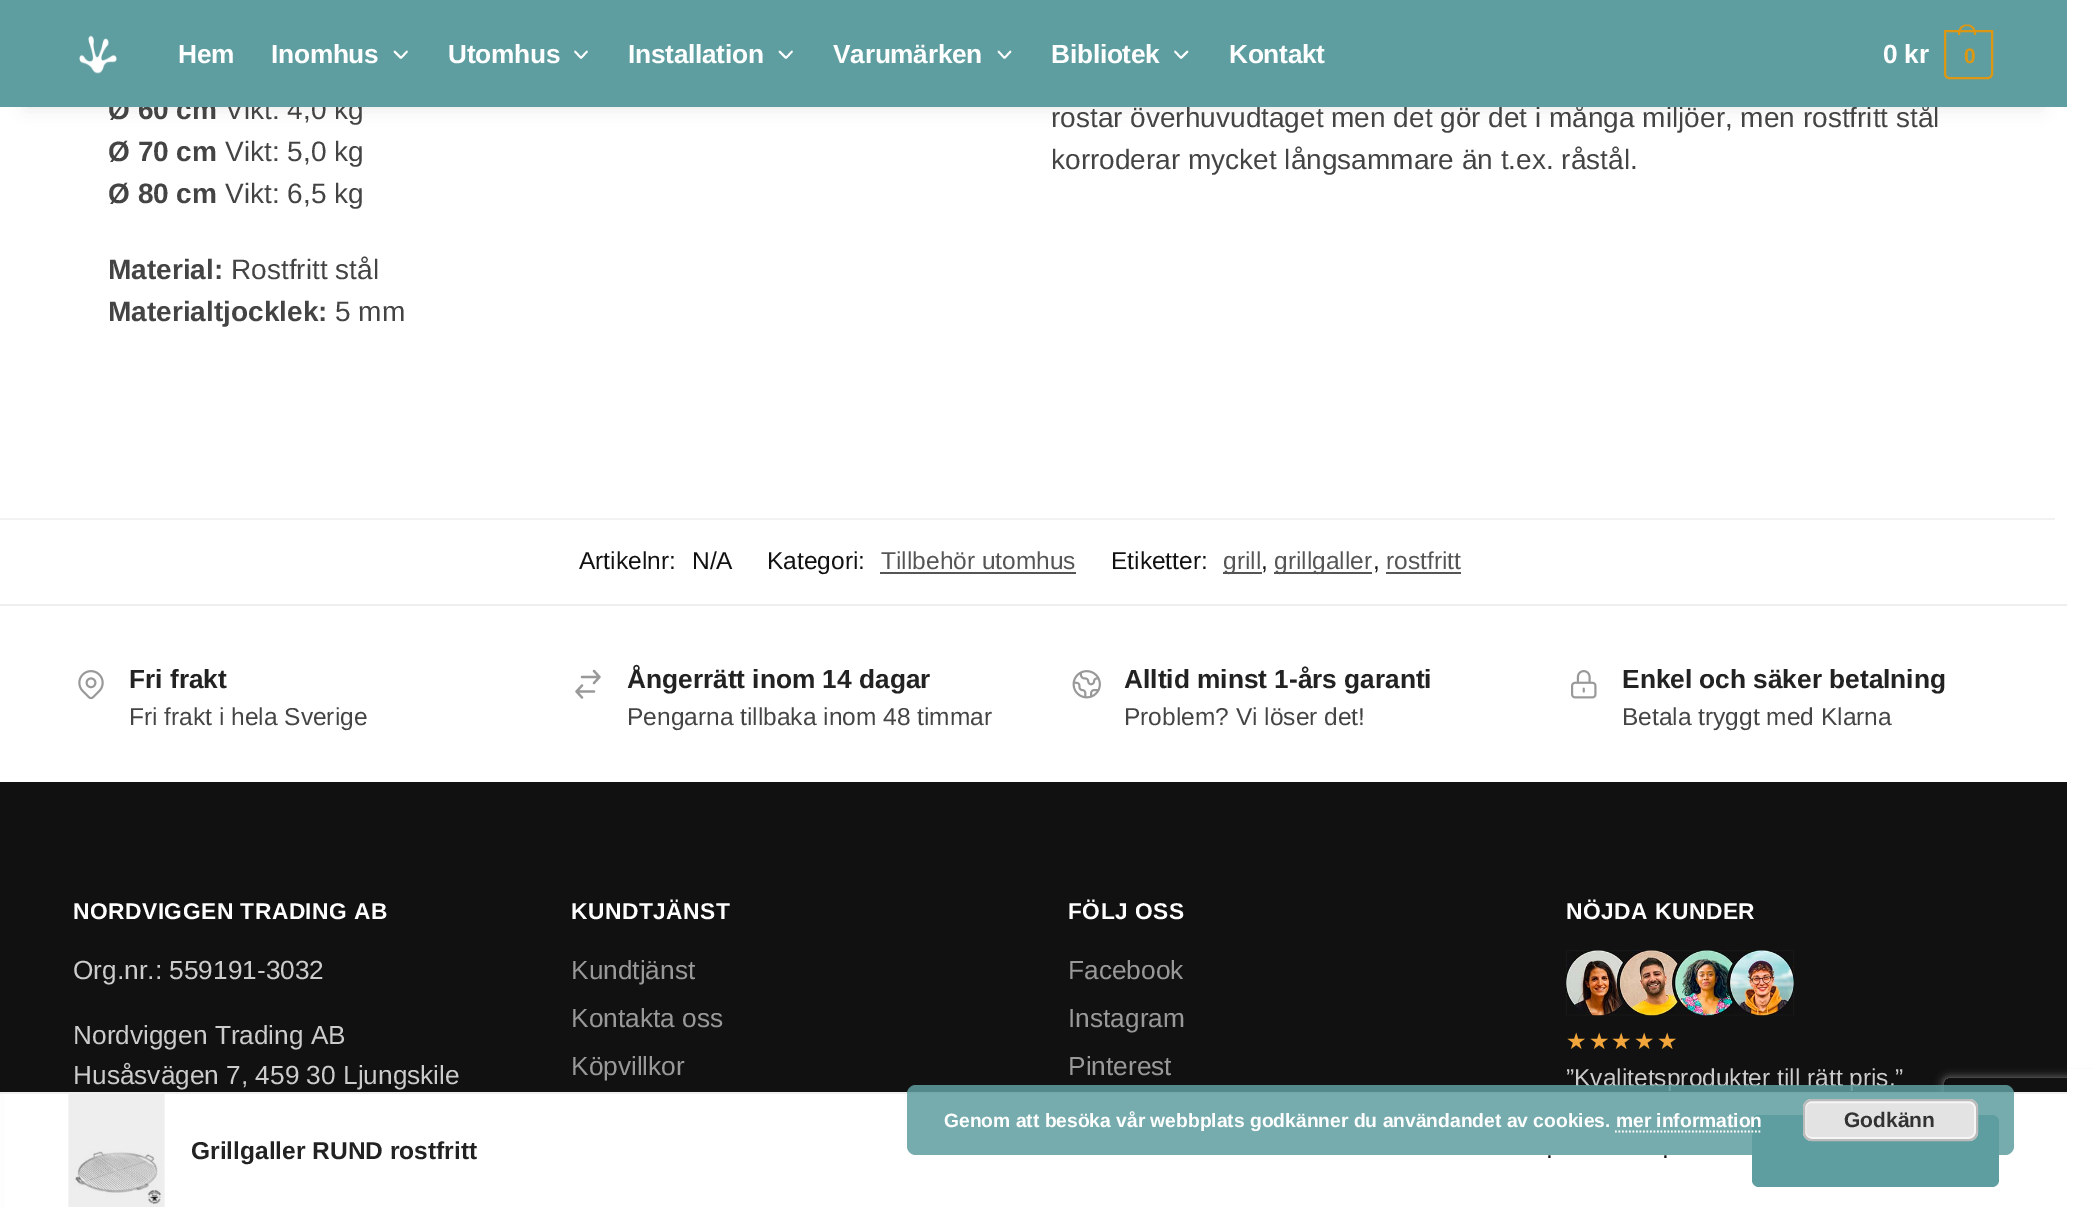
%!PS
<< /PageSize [2093 1207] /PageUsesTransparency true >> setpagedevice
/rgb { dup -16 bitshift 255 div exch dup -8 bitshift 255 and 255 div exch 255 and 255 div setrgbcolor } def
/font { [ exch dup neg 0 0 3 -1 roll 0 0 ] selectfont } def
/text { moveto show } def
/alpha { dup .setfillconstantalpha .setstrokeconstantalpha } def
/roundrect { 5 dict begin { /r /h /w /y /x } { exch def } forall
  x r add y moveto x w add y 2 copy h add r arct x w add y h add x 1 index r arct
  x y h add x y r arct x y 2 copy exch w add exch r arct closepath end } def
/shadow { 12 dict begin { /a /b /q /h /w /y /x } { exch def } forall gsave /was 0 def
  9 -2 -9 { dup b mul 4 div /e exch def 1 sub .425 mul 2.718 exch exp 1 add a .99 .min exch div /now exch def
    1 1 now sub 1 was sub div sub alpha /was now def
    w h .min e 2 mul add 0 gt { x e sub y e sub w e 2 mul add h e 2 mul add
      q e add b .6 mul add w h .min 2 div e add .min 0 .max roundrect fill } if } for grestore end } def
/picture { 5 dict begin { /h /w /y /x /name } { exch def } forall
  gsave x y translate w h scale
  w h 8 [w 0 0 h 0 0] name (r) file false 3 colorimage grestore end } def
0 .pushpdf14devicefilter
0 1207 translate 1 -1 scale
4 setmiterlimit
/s1 { /LiberationSans-Bold 28 font 16#444444 rgb } def
/s2 { /LiberationSans-Regular 28 font 16#444444 rgb } def
/s3 { /LiberationSans-Regular 24.5 font 16#111111 rgb } def
/s4 { /LiberationSans-Regular 24.5 font 16#555555 rgb } def
/s5 { /LiberationSans-Bold 24.5 font 16#222222 rgb } def
/s6 { /LiberationSans-Bold 26.25 font 16#222222 rgb } def
/s7 { /LiberationSans-Regular 24.5 font 16#444444 rgb } def
/s8 { /LiberationSans-Regular 26.25 font 16#CCCCCC rgb } def
/s9 { /LiberationSans-Regular 26.25 font 16#999999 rgb } def
/s10 { /LiberationSans-Regular 24.5 font 16#CCCCCC rgb } def
/s11 { /LiberationSans-Bold 19.25 font 16#FFFFFF rgb } def
/s12 { /LiberationSans-Bold 21 font 16#333333 rgb } def
16#FFFFFF rgb
0 0 2093 1207 rectfill
16#000000 rgb
26 53 2015 54 0 9 0.1 shadow
s1
(Ø 60 cm) 108 119 text
s2
(Vikt: 4,0 kg) 225 119 text
(rostar överhuvudtaget men det gör det i många miljöer, men rostfritt stål) 1051 127 text
16#5F9EA0 rgb
0 0 2067 107 rectfill
(pic1.raw) 79 35 38 39 picture
/LiberationSans-Bold 26.25 font
16#FFFFFF rgb
178 63 moveto -0.25 0 (Hem) ashow
271 63 moveto -0.25 0 (Inomhus) ashow
1.8 setlinewidth
1 setlinecap
1 setlinejoin
407 51.5 moveto 401 58 lineto 394.5 51.5 lineto stroke
448 63 moveto -0.25 0 (Utomhus) ashow
587 51.5 moveto 581 58 lineto 575 51.5 lineto stroke
628 63 moveto -0.25 0 (Installation) ashow
792 51.5 moveto 786 58 lineto 779.5 51.5 lineto stroke
833 63 moveto -0.25 0 (Varumärken) ashow
1010.5 51.5 moveto 1004.5 58 lineto 998.5 51.5 lineto stroke
1051 63 moveto -0.25 0 (Bibliotek) ashow
1187.5 51.5 moveto 1181 58 lineto 1175 51.5 lineto stroke
1229 63 moveto -0.25 0 (Kontakt) ashow
1883 63 moveto -0.25 0 (0 kr) ashow
16#DC9814 rgb
2 setlinewidth
0 setlinecap
0 setlinejoin
1945 31 moveto 1992 31 lineto 1992 74 lineto 1992 76 1990 78 1988 78 curveto 1949 78 lineto 1947 78 1945 76 1945 74 curveto closepath stroke
1967 24.5 moveto 1973.5 24.5 1976 29.5 1976 35 curveto 1958 35 lineto 1958 29.5 1960.5 24.5 1967 24.5 curveto closepath 1967 26 moveto 1972.5 26 1974 30.5 1974 35 curveto 1960 35 lineto 1960 30.5 1961.5 26 1967 26 curveto closepath eofill
/LiberationSans-Bold 21 font
1964 63 moveto -1 0 (0) ashow
s1
(Ø 70 cm) 108 161 text
s2
(Vikt: 5,0 kg) 225 161 text
s1
(Ø 80 cm) 108 203 text
s2
(Vikt: 6,5 kg) 225 203 text
s1
(Material:) 108 279 text
s2
(Rostfritt stål) 231 279 text
s1
(Materialtjocklek:) 108 321 text
s2
(5 mm) 335 321 text
(korroderar mycket långsammare än t.ex. råstål.) 1051 169 text
16#F2F2F2 rgb
0 518 2055 2 rectfill
s3
(Artikelnr:) 579 569 text
(N/A) 692 569 text
(Kategori:) 767 569 text
s4
(Tillbehör utomhus) 881 569 text
880 572 196 2 rectfill
s3
(Etiketter:) 1111 569 text
16#555555 rgb
1223 572 39 2 rectfill
(grill) 1223 569 text
s3
(,) 1261 569 text
16#555555 rgb
1274 572 98 2 rectfill
(grillgaller) 1274 569 text
s3
(,) 1373 569 text
s4
(rostfritt) 1386 569 text
1386 572 75 2 rectfill
16#111111 rgb
0 782 2067 310 rectfill
16#1B1F23 rgb
9 1092 2067 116 0 4.5 0.1 shadow
gsave
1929 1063 moveto 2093 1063 lineto 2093 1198 lineto 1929 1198 lineto closepath 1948 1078 moveto 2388 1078 lineto 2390 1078 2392 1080 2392 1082 curveto 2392 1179 lineto 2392 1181 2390 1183 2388 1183 curveto 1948 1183 lineto 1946 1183 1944 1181 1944 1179 curveto 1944 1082 lineto 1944 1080 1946 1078 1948 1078 curveto closepath eoclip newpath
16#808080 rgb
1944 1078 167 105 4 4.5 1 shadow
grestore
16#FFFFFF rgb
4 1094 2063 113 rectfill
16#EEEEEE rgb
0 1092 2067 2 rectfill
(pic2.raw) 68 1094 97 113 picture
s5
(Grillgaller RUND rostfritt) 191 1159 text
s3
(.) 1546 1158 text
(.) 1662 1158 text
16#5F9EA0 rgb
1752 1115 247 72 7 roundrect fill
16#EEEEEE rgb
0 604 2067 2 rectfill
s6
(Fri frakt) 129 688 text
(pic3.raw) 78 670 26 30 picture
s7
(Fri frakt i hela Sverige) 129 725 text
s6
(Ångerrätt inom 14 dagar) 627 688 text
16#999999 rgb
2.2 setlinewidth
1 setlinecap
1 setlinejoin
582 677 moveto 599.5 677 lineto 599.5 677 moveto 594 671 lineto 599.5 677 moveto 594 683 lineto 594 691.5 moveto 576.5 691.5 lineto 576.5 691.5 moveto 582 697.5 lineto 576.5 691.5 moveto 582 685.5 lineto stroke
s7
(Pengarna tillbaka inom 48 timmar) 627 725 text
s6
(Alltid minst 1-års garanti) 1124 688 text
(pic4.raw) 1072 670 29 29 picture
s7
(Problem? Vi löser det!) 1124 725 text
s6
(Enkel och säker betalning) 1622 688 text
(pic5.raw) 1571 670 26 29 picture
s7
(Betala tryggt med Klarna) 1622 725 text
/LiberationSans-Bold 22.75 font
16#FFFFFF rgb
73 919 moveto 0.5 0 (NORDVIGGEN TRADING AB) ashow
s8
(Org.nr.: 559191-3032) 73 979 text
(Nordviggen Trading AB) 73 1044 text
(Husåsvägen 7, 459 30 Ljungskile) 73 1084 text
/LiberationSans-Bold 22.75 font
16#FFFFFF rgb
571 919 moveto 0.5 0 (KUNDTJÄNST) ashow
s9
(Kundtjänst) 571 979 text
(Kontakta oss) 571 1027 text
(Köpvillkor) 571 1075 text
/LiberationSans-Bold 22.75 font
16#FFFFFF rgb
1068 919 moveto 0.5 0 (FÖLJ OSS) ashow
s9
(Facebook) 1068 979 text
(Instagram) 1068 1027 text
(Pinterest) 1068 1075 text
/LiberationSans-Bold 22.75 font
16#FFFFFF rgb
1566 919 moveto 0.5 0 (NÖJDA KUNDER) ashow
(pic6.raw) 1566 950 228 66 picture
/DejaVuSans-Regular 22.75 font
16#F3A63B rgb
1566 1049 moveto 2.25 0 (★★★★★) ashow
s10
(”Kvalitetsprodukter till rätt pris.”) 1566 1086 text
16#FFFFFF rgb
2067 1069 26 138 rectfill
0.85 alpha
16#5F9EA0 rgb
907 1085 1107 70 9 roundrect fill
1 alpha
s11
(Genom att besöka vår webbplats godkänner du användandet av cookies. mer information) 944 1127 text
16#E3E3E3 rgb
1803 1099 175 42 9 roundrect fill
16#F6F6F6 rgb
2 setlinewidth
0 setlinecap
0 setlinejoin
1805 1102 170 36 6 roundrect stroke
16#BBBBBB rgb
1804 1100 173 40 8 roundrect stroke
s12
(Godkänn) 1844 1127 text
16#FFFFFF rgb
1.8 setlinewidth
[1.75 1.75] 0 setdash
1615 1131.5 moveto 1762 1131.5 lineto stroke
.poppdf14devicefilter showpage
